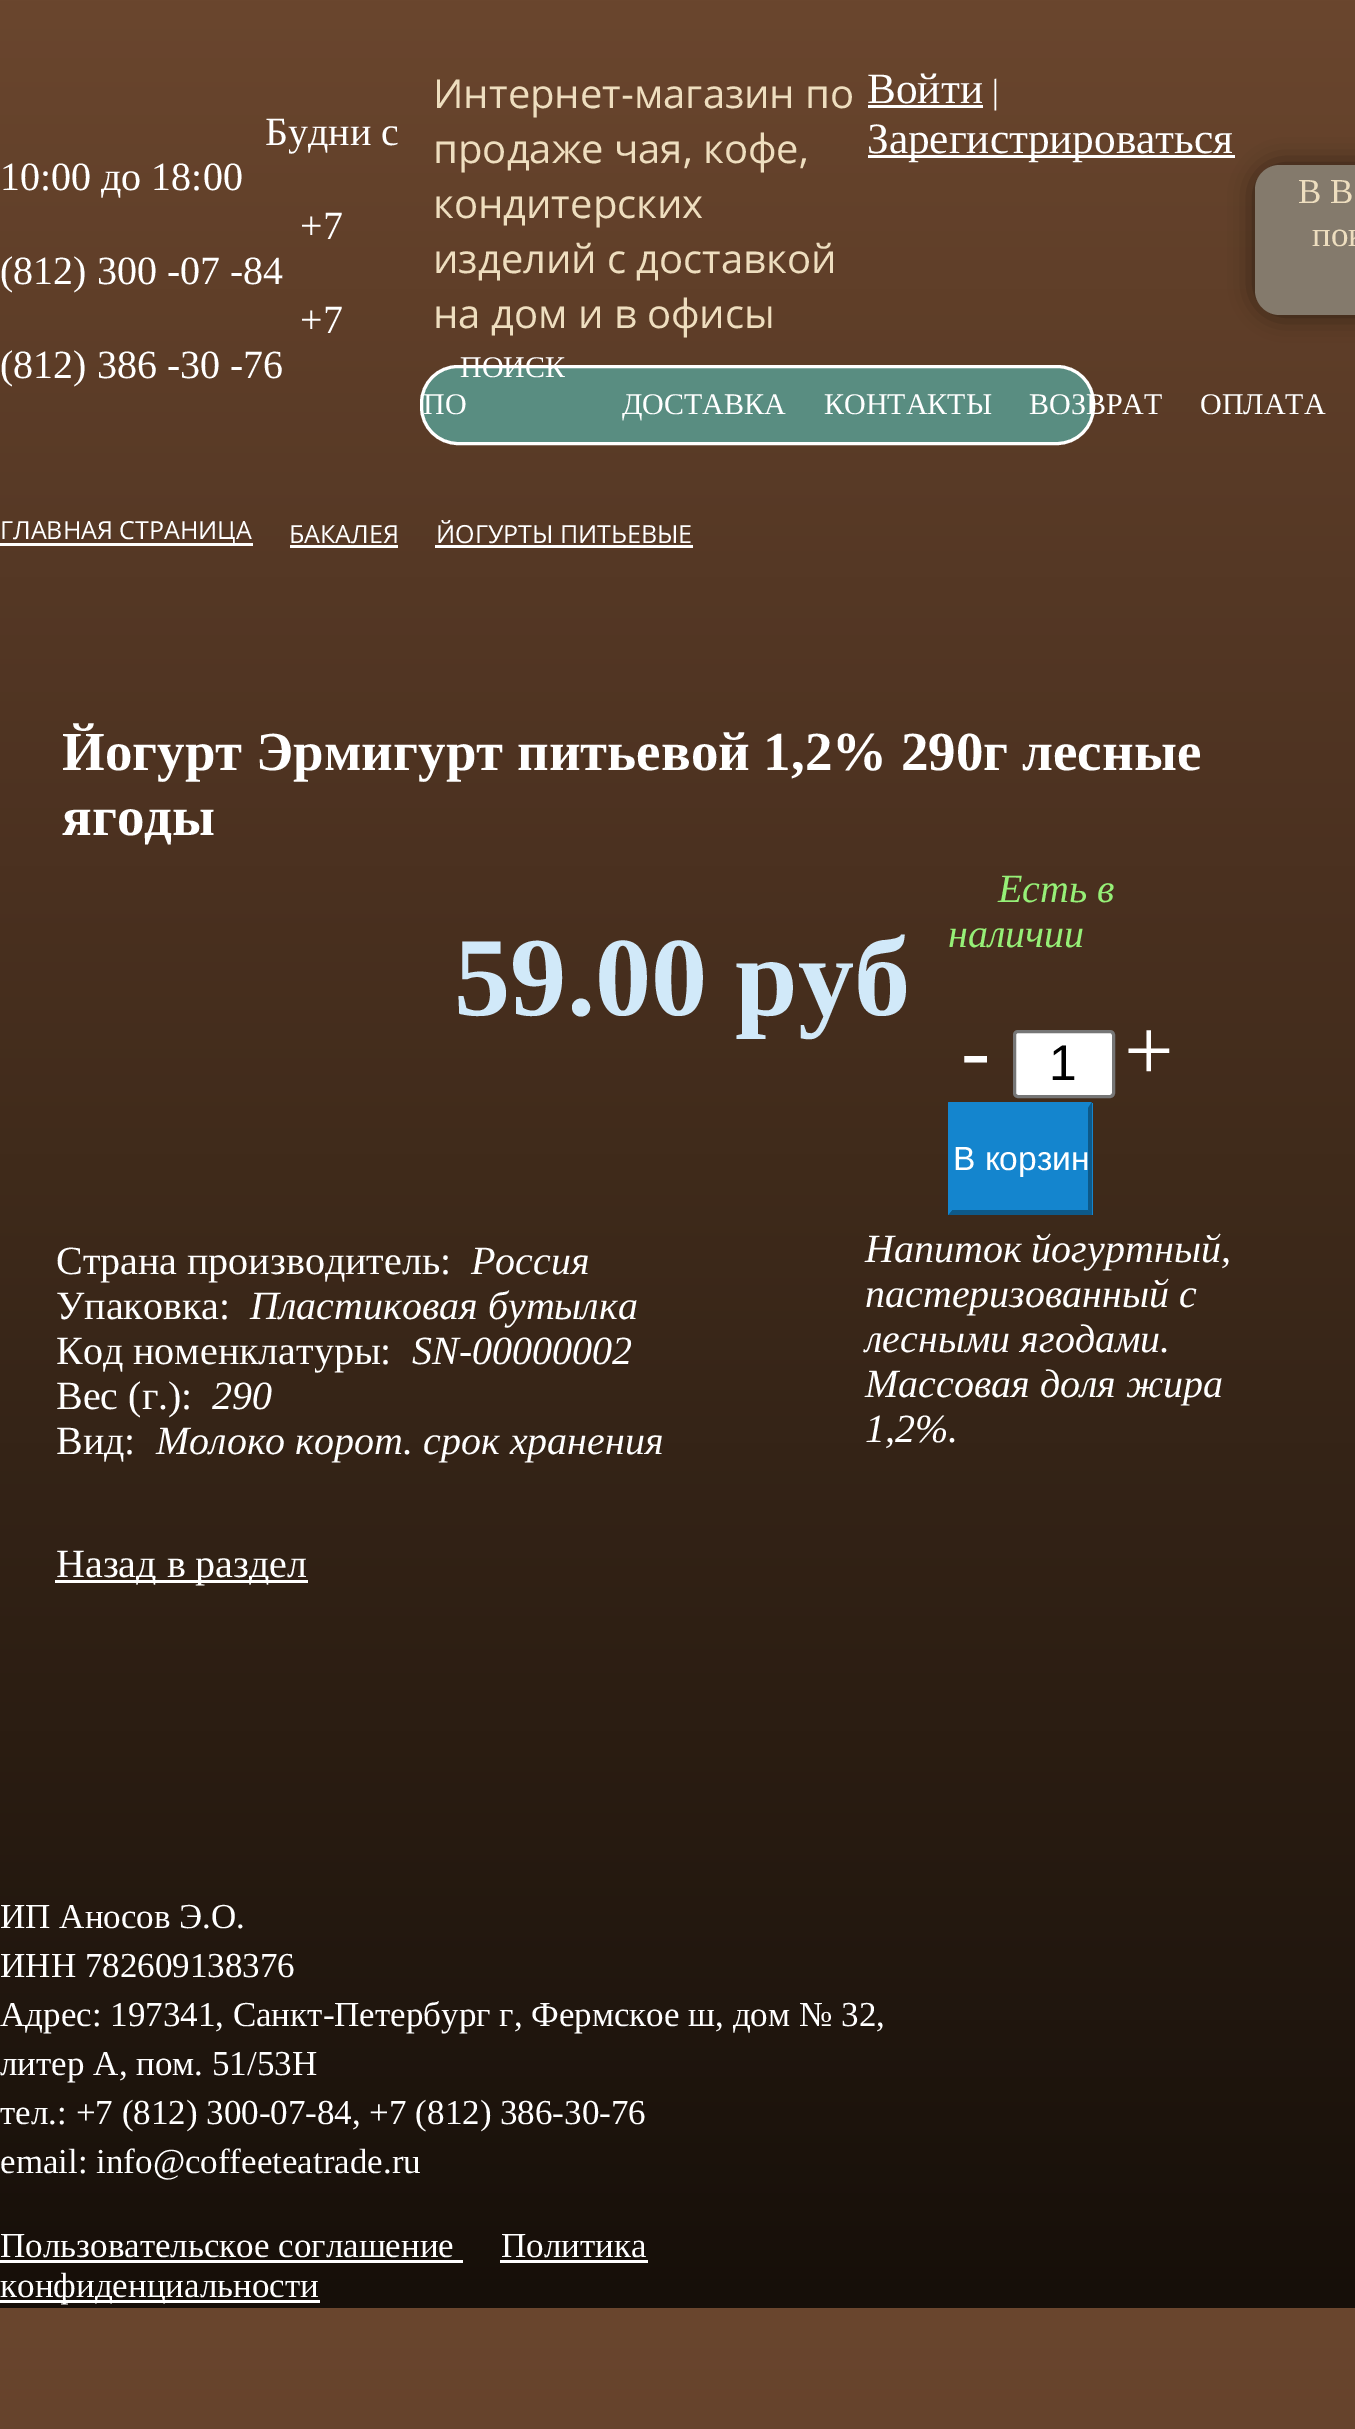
%!PS
<< /PageSize [1355 2429] /PageUsesTransparency true >> setpagedevice
/rgb { dup -16 bitshift 255 div exch dup -8 bitshift 255 and 255 div exch 255 and 255 div setrgbcolor } def
/font { [ exch dup neg 0 0 3 -1 roll 0 0 ] selectfont } def
/text { moveto show } def
/alpha { dup .setfillconstantalpha .setstrokeconstantalpha } def
/roundrect { 5 dict begin { /r /h /w /y /x } { exch def } forall
  x r add y moveto x w add y 2 copy h add r arct x w add y h add x 1 index r arct
  x y h add x y r arct x y 2 copy exch w add exch r arct closepath end } def
/shadow { 12 dict begin { /a /b /q /h /w /y /x } { exch def } forall gsave /was 0 def
  9 -2 -9 { dup b mul 4 div /e exch def 1 sub .425 mul 2.718 exch exp 1 add a .99 .min exch div /now exch def
    1 1 now sub 1 was sub div sub alpha /was now def
    w h .min e 2 mul add 0 gt { x e sub y e sub w e 2 mul add h e 2 mul add
      q e add b .6 mul add w h .min 2 div e add .min 0 .max roundrect fill } if } for grestore end } def
0 .pushpdf14devicefilter
0 2429 translate 1 -1 scale
4 setmiterlimit
/s1 { /LiberationSerif-Regular 43.25 font 16#FFFFFF rgb } def
/s2 { /LiberationSerif-Regular 35 font 16#FFFFFF rgb } def
/s3 { /LiberationSerif-Regular 35 font 16#EEDEBF rgb } def
/s4 { /LiberationSerif-Regular 40 font 16#FFFFFF rgb } def
/s5 { /OpenSans-Regular 40 font 16#EEDEBF rgb } def
/s6 { /LiberationSerif-Regular 30 font 16#FFFFFF rgb } def
/s7 { /OpenSans-Regular 25 font 16#FFFFFF rgb } def
/s8 { /LiberationSerif-Bold 55 font 16#FFFFFF rgb } def
/s9 { /LiberationSerif-Bold 112.5 font 16#D1E9F9 rgb } def
/s10 { /LiberationSerif-Italic 40 font 16#96F077 rgb } def
/s11 { /LiberationSerif-Regular 88 font 16#FFFFFF rgb } def
/s12 { /LiberationSans-Regular 50 font 16#000000 rgb } def
/s13 { /LiberationSans-Regular 33.5 font 16#FFFFFF rgb } def
/s14 { /LiberationSerif-Italic 40 font 16#FFFFFF rgb } def
16#FFFFFF rgb
0 0 1355 2429 rectfill
gsave 0 0 moveto 1355 0 lineto 1355 2308 lineto 0 2308 lineto closepath clip newpath
<< /ShadingType 2 /ColorSpace /DeviceRGB /Coords [678 2308 678 0] /Extend [true true] /Function << /FunctionType 2 /Domain [0 1] /C0 [0.086 0.059 0.035] /C1 [0.416 0.275 0.18] /N 1 >> >> shfill grestore
gsave 0 2308 moveto 1355 2308 lineto 1355 2429 lineto 0 2429 lineto closepath clip newpath
<< /ShadingType 2 /ColorSpace /DeviceRGB /Coords [678 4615 678 2308] /Extend [true true] /Function << /FunctionType 2 /Domain [0 1] /C0 [0.086 0.059 0.035] /C1 [0.416 0.275 0.18] /N 1 >> >> shfill grestore
s1
(Войти) 867 103 text
868 105 115 3 rectfill
s2
(|) 992 103 text
868 155 367 3 rectfill
s1
(Зарегистрироваться) 867 153 text
16#000000 rgb
1255 165 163 150 25 12.5 0.5 shadow
16#847A6C rgb
1280 165 moveto 1355 165 lineto 1355 315 lineto 1280 315 lineto 1266 315 1255 304 1255 290 curveto 1255 190 lineto 1255 176 1266 165 1280 165 curveto closepath fill
s3
(В В) 1298 203 text
(пок) 1312 246 text
s4
(Будни с) 265 145 text
(10:00 до 18:00) 0 190 text
(+7) 300 239 text
(\(812\) 300 -07 -84) 0 284 text
(+7) 300 333 text
(\(812\) 386 -30 -76) 0 378 text
s5
(Интернет-магазин по) 433 108 text
(продаже чая, кофе,) 433 163 text
(кондитерских) 433 218 text
(изделий с доставкой) 433 273 text
(на дом и в офисы) 433 328 text
16#598D81 rgb
421.5 366.5 672 77 36.5 roundrect gsave fill grestore
16#FFFFFF rgb
3 setlinewidth
stroke
s6
(ПОИСК) 460 377 text
(ПО) 423 414 text
(ДОСТАВКА) 622 414 text
(КОНТАКТЫ) 824 414 text
(ВОЗВРАТ) 1029 414 text
(ОПЛАТА) 1200 414 text
0 543 253 3 rectfill
s7
(ГЛАВНАЯ СТРАНИЦА) 0 539 text
(БАКАЛЕЯ) 289 543 text
290 545 108 3 rectfill
(ЙОГУРТЫ ПИТЬЕВЫЕ) 436 543 text
435 545 258 3 rectfill
s8
(Йогурт Эрмигурт питьевой 1,2% 290г лесные) 62 770 text
(ягоды) 62 835 text
s9
(59.00 руб) 454 1015 text
s10
(Есть в) 998 902 text
(наличии) 948 947 text
s11
(-) 961 1080 text
1014.5 1031.5 99 65 3.5 roundrect gsave fill grestore
16#767676 rgb
stroke
s12
(1) 1049 1080 text
s11
(+) 1124 1080 text
16#1485CE rgb
948 1103 145 112 rectfill
948 1102 moveto 1092 1102 lineto 1088 1108 lineto 952 1108 lineto closepath fill
16#0D5989 rgb
1092 1102 moveto 1092 1215 lineto 1088 1210 lineto 1088 1108 lineto closepath fill
1092 1215 moveto 948 1215 lineto 952 1210 lineto 1088 1210 lineto closepath fill
16#1485CE rgb
948 1215 moveto 948 1102 lineto 952 1108 lineto 952 1210 lineto closepath fill
s13
(В корзин) 953 1170 text
s4
(Страна производитель:) 56 1274 text
s14
(Россия) 471 1274 text
s4
(Упаковка:) 56 1319 text
s14
(Пластиковая бутылка) 250 1319 text
s4
(Код номенклатуры:) 56 1364 text
s14
(SN-00000002) 412 1364 text
s4
(Вес \(г.\):) 56 1409 text
s14
(290) 212 1409 text
s4
(Вид:) 56 1454 text
s14
(Молоко корот. срок хранения) 156 1454 text
(Напиток йогуртный,) 865 1262 text
(пастеризованный с) 865 1307 text
(лесными ягодами.) 865 1352 text
(Массовая доля жира) 865 1397 text
(1,2%.) 865 1442 text
55 1580 253 3 rectfill
s4
(Назад в раздел) 56 1577 text
s2
(ИП Аносов Э.О.) 0 1928 text
(ИНН 782609138376) 0 1977 text
(Адрес: 197341, Санкт-Петербург г, Фермское ш, дом № 32,) 0 2026 text
(литер А, пом. 51/53Н) 0 2075 text
(тел.: +7 \(812\) 300-07-84, +7 \(812\) 386-30-76) 0 2124 text
(email: info@coffeeteatrade.ru) 0 2173 text
(Пользовательское соглашение) 0 2257 text
0 2260 463 3 rectfill
(Политика) 501 2257 text
500 2260 148 3 rectfill
0 2300 320 3 rectfill
(конфиденциальности) 0 2297 text
.poppdf14devicefilter showpage
